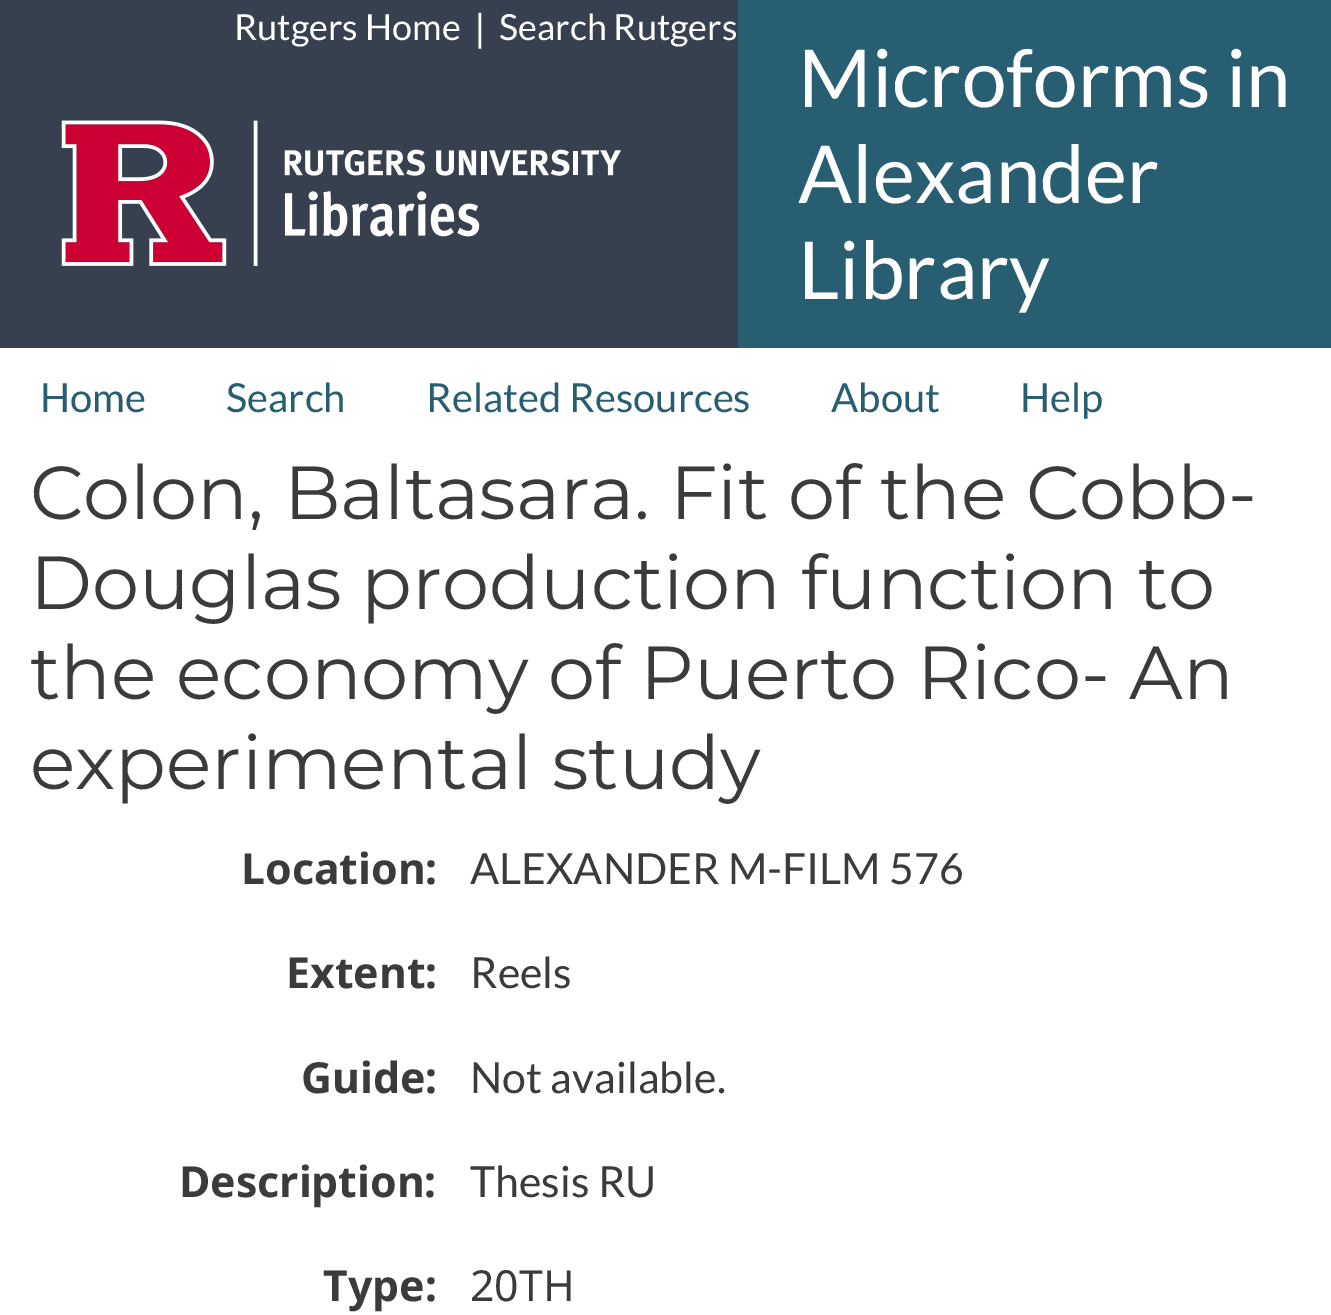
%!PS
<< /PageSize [1331 1315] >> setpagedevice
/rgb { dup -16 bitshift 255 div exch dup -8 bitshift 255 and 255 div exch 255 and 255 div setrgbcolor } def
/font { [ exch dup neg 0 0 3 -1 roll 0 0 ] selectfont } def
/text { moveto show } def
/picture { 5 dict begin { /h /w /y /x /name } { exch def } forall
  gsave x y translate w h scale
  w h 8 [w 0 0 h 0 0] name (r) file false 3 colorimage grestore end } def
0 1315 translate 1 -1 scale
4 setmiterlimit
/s1 { /Lato-Regular 36 font 16#FFFFFF rgb } def
/s2 { /NotoSans-Regular 36 font 16#FFFFFF rgb } def
/s3 { /Lato-Regular 80 font 16#FFFFFF rgb } def
/s4 { /Lato-Regular 40 font 16#285E71 rgb } def
/s5 { /Montserrat-Regular 75 font 16#3B3B3B rgb } def
/s6 { /NotoSans-Bold 42.8 font 16#3B3B3B rgb } def
/s7 { /Lato-Regular 42.8 font 16#3B3B3B rgb } def
/s8 { /NotoSans-Regular 42.8 font 16#3B3B3B rgb } def
16#FFFFFF rgb
0 0 1331 1315 rectfill
16#285E71 rgb
738 0 593 348 rectfill
16#36404E rgb
0 0 738 348 rectfill
s1
(Rutgers Home) 234 40 text
s2
(|) 470 40 text
s1
(Search Rutgers) 499 40 text
(pic1.raw) 61 120 560 146 picture
s3
(Microforms in) 798 107 text
(Alexander) 798 203 text
(Library) 798 299 text
s4
(Home) 40 412 text
(Search) 226 412 text
(Related Resources) 426 412 text
(About) 831 412 text
(Help) 1020 412 text
s5
(Colon, Baltasara. Fit of the Cobb-) 30 519 text
(Douglas production function to) 30 609 text
(the economy of Puerto Rico- An) 30 699 text
(experimental study) 30 789 text
s6
(Location:) 241 884 text
s7
(ALEXANDER M-FILM 576) 470 884 text
s6
(Extent:) 286 988 text
s7
(Reels) 470 988 text
s6
(Guide:) 301 1093 text
s7
(Not available.) 470 1093 text
s6
(Description:) 179 1197 text
s7
(Thesis RU) 470 1197 text
s6
(Type:) 323 1301 text
s8
(20TH) 470 1301 text
showpage
